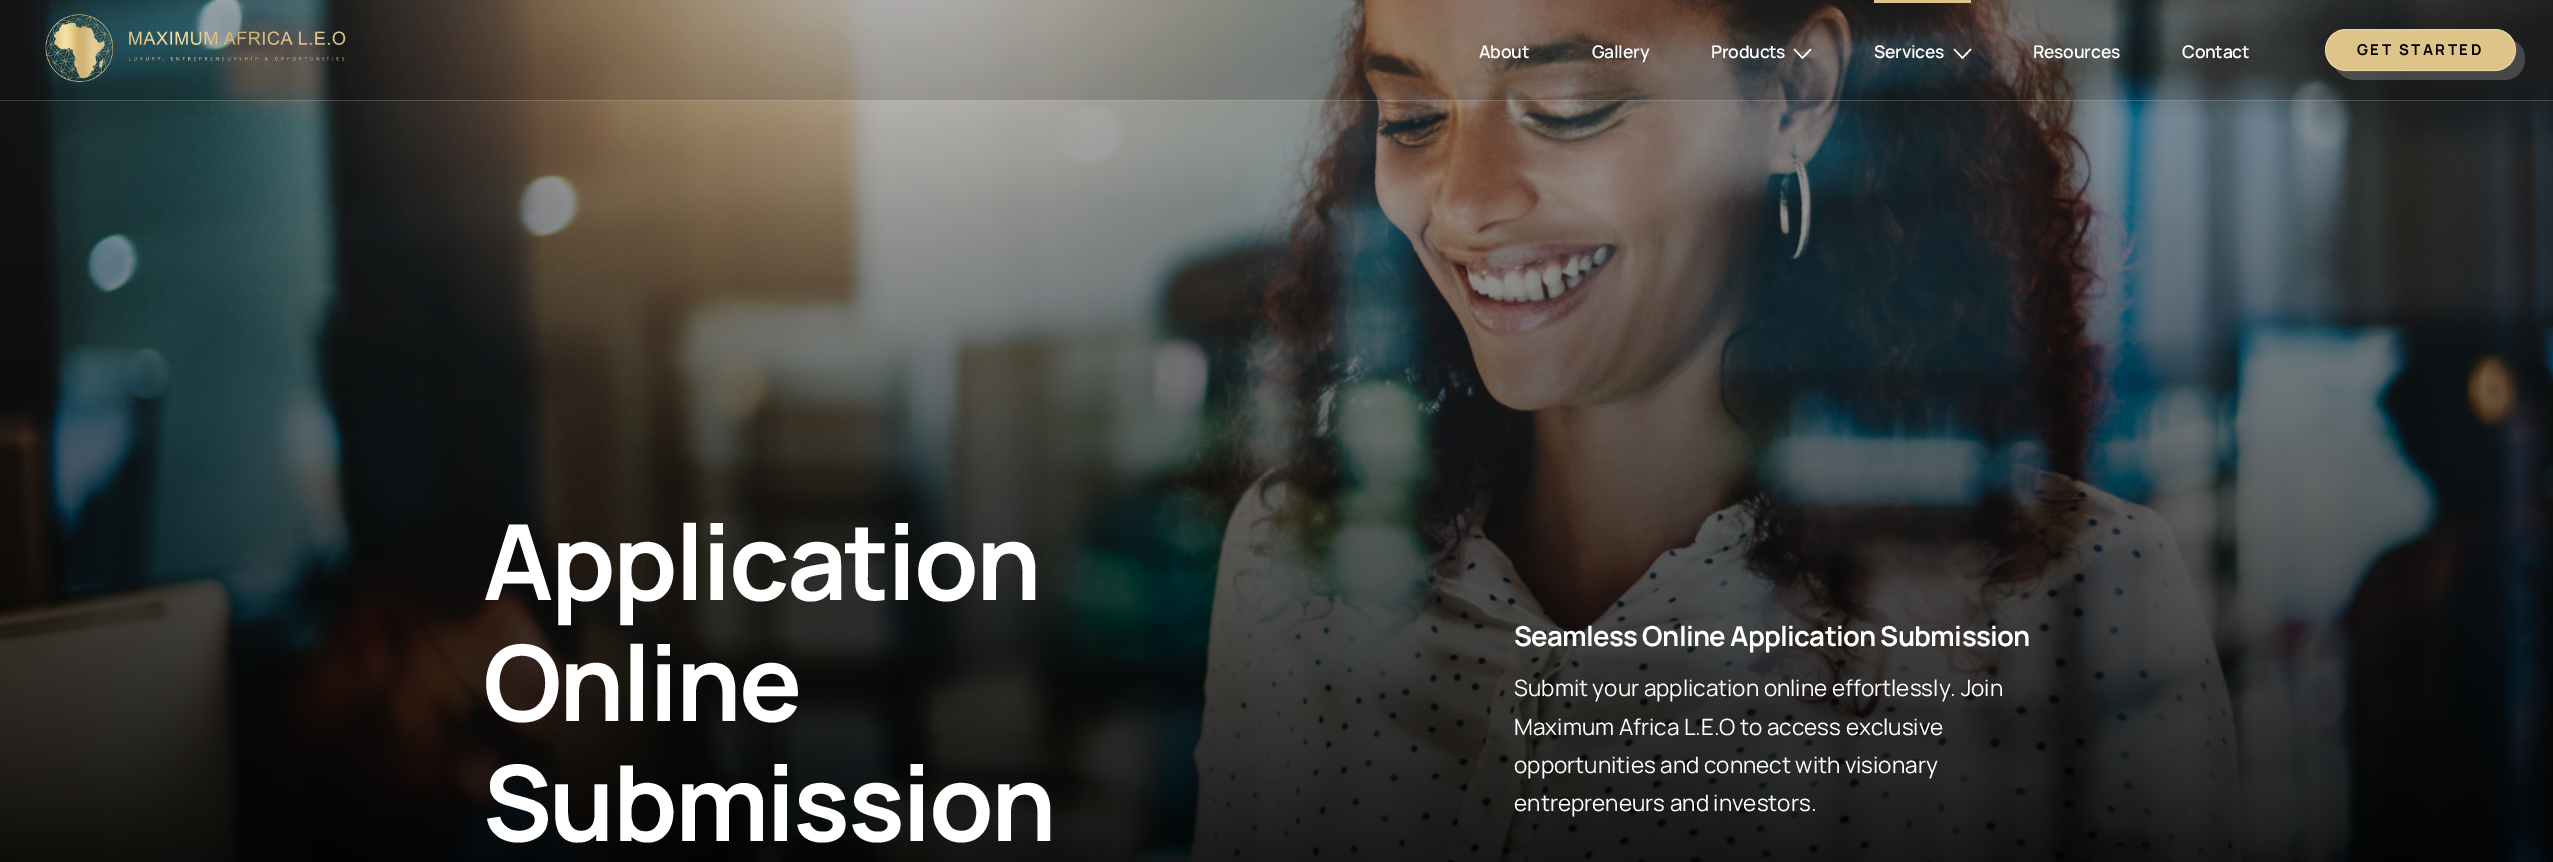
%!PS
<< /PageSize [2553 862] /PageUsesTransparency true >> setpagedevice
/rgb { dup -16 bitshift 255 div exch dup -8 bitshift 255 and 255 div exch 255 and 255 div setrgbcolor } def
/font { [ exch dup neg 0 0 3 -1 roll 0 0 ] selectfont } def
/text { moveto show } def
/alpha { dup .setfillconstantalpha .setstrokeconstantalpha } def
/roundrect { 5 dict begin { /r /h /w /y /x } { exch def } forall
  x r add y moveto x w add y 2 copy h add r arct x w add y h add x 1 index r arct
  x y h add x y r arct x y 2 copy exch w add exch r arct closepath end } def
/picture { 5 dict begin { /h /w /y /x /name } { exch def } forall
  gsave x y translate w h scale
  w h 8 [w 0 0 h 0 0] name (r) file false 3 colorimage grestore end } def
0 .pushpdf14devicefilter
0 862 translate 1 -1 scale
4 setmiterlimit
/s1 { /Manrope-Regular 22.5 font 16#FFFFFF rgb } def
16#FFFFFF rgb
0 0 2553 862 rectfill
(pic2.raw) 0 0 2553 862 picture
0.08 alpha
16#000000 rgb
40 0 2513 101 rectfill
0.19 alpha
16#FFFFFF rgb
0 100 2553 1 rectfill
0.08 alpha
16#000000 rgb
41 0 2512 100 rectfill
1 alpha
(pic1.raw) 45 14 301 69 picture
/Manrope-SemiBold 17.5 font
16#FFFFFF rgb
1479 58 moveto -0.25 0 (About) ashow
1592 58 moveto -0.25 0 (Gallery) ashow
1711 58 moveto -0.25 0 (Products) ashow
1.5 setlinewidth
1 setlinecap
1 setlinejoin
1794.5 49.5 moveto 1802.5 58 lineto 1810.5 49.5 lineto stroke
16#DEC488 rgb
1874 0 97 3 rectfill
16#FFFFFF rgb
1874 58 moveto -0.25 0 (Services) ashow
1954.5 49.5 moveto 1962.5 58 lineto 1970.5 49.5 lineto stroke
2033 58 moveto -0.25 0 (Resources) ashow
2182 58 moveto -0.25 0 (Contact) ashow
0.19 alpha
2336 69 moveto 2340 75 2347 80 2355 80 curveto 2504 80 lineto 2516 80 2525 71 2525 59 curveto 2525 51 2521 44 2514 41 curveto 2515 43 2516 47 2516 50 curveto 2516 62 2507 71 2495 71 curveto 2346 71 lineto 2343 71 2339 70 2336 69 curveto closepath fill
1 alpha
16#DEC488 rgb
2325 29 191 42 21 roundrect fill
0.25 alpha
16#FFFFFF rgb
1 setlinewidth
0 setlinecap
0 setlinejoin
2325.5 29.5 190 41 20.5 roundrect stroke
/Manrope-Bold 15 font
1 alpha
16#000000 rgb
2357 55 moveto 2.5 0 (GET STARTED) ashow
/Manrope-Bold 105 font
16#FFFFFF rgb
483 600 moveto -2.6 0 (Application) ashow
483 721 moveto -2.6 0 (Online) ashow
483 841 moveto -2.6 0 (Submission) ashow
/Manrope-Bold 27.5 font
1514 646 moveto -0.7 0 (Seamless Online Application Submission) ashow
s1
(Submit your application online effortlessly. Join) 1514 696 text
(Maximum Africa L.E.O to access exclusive) 1514 735 text
(opportunities and connect with visionary) 1514 773 text
(entrepreneurs and investors.) 1514 811 text
.poppdf14devicefilter showpage
